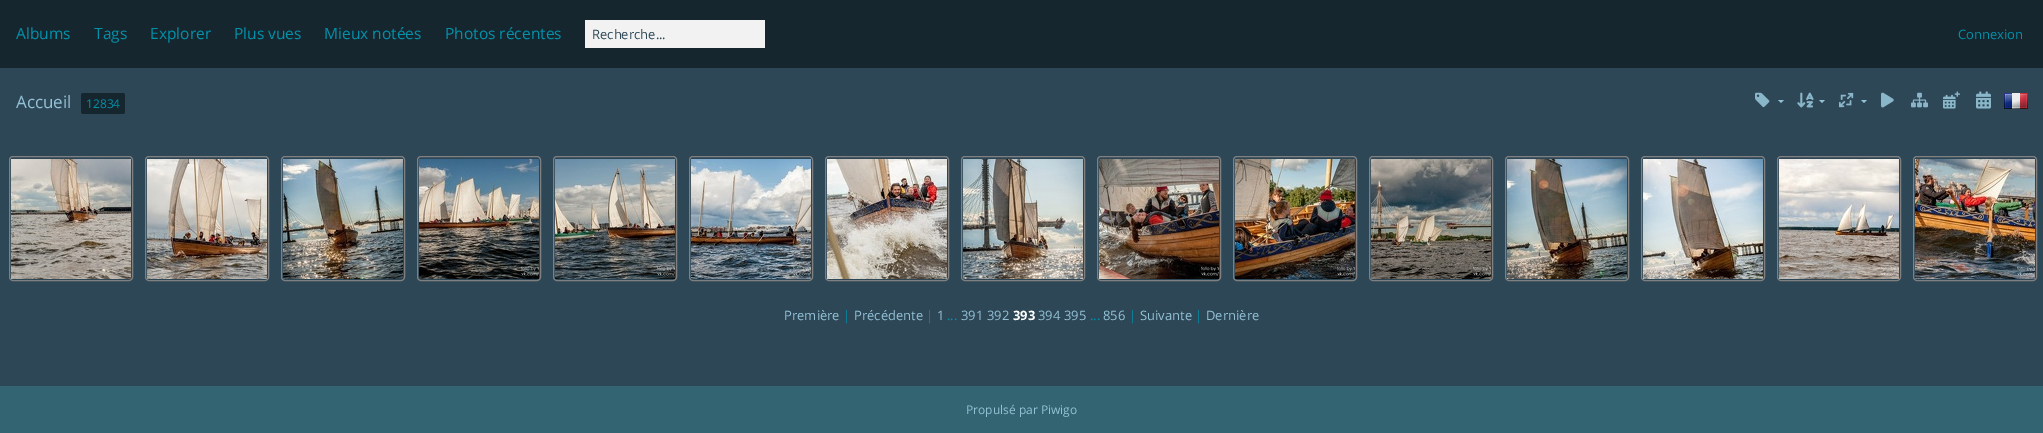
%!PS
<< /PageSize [2043 433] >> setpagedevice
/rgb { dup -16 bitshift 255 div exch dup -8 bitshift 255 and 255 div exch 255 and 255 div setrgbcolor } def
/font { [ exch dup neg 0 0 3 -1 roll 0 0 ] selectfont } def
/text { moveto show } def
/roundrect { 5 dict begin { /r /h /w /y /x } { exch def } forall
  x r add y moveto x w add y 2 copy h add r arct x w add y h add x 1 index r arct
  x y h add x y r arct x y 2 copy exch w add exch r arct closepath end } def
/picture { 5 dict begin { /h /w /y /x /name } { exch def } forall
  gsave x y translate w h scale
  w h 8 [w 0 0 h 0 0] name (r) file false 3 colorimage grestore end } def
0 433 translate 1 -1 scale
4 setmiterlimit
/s1 { /OpenSans-Regular 15.5 font 16#0391AA rgb } def
/s2 { /OpenSans-Regular 13 font 16#2E4756 rgb } def
/s3 { /OpenSans-Regular 13 font 16#0391AA rgb } def
/s4 { /OpenSans-Regular 17 font 16#93C2D6 rgb } def
/s5 { /OpenSans-Regular 12 font 16#0391AA rgb } def
/s6 { /OpenSans-Regular 13 font 16#93C2D6 rgb } def
/s7 { /OpenSans-Bold 13 font 16#FFFFFF rgb } def
/s8 { /OpenSans-Regular 12 font 16#93C2D6 rgb } def
16#2E4756 rgb
0 0 2043 433 rectfill
16#16262E rgb
0 0 2043 68 rectfill
s1
(Albums) 16 39 text
(Tags) 94 39 text
(Explorer) 150 39 text
(Plus vues) 234 39 text
(Mieux notées) 324 39 text
(Photos récentes) 445 39 text
16#F2F2F2 rgb
585 20 180 28 rectfill
s2
(Recherche...) 592 39 text
s3
(Connexion) 1958 39 text
s4
(Accueil) 16 108 text
16#16262E rgb
86 93 34 21 rectfill
120 93 moveto 122.5 93 lineto 124 93 125 94 125 95.5 curveto 125 111.5 lineto 125 113 124 114 122.5 114 curveto 120 114 lineto closepath fill
s5
(12834) 86 108 text
16#16262E rgb
83.5 93 moveto 86 93 lineto 86 114 lineto 83.5 114 lineto 82 114 81 113 81 111.5 curveto 81 95.5 lineto 81 94 82 93 83.5 93 curveto closepath fill
(pic1.raw) 1755 92 15 16 picture
16#93C2D6 rgb
1778 100 moveto 1784 100 lineto 1781 103 lineto closepath 1819 100 moveto 1825 100 lineto 1822 103 lineto closepath fill
(pic2.raw) 1943 91 17 18 picture
(pic3.raw) 1976 91 15 18 picture
(pic4.raw) 1797 92 17 16 picture
(pic5.raw) 1839 92 15 16 picture
1861 100 moveto 1867 100 lineto 1864 103 lineto closepath fill
(pic6.raw) 1881 92 13 16 picture
(pic7.raw) 1911 92 17 16 picture
(pic8.raw) 2004 93 24 16 picture
16#808080 rgb
9.5 156.5 123 124 3.5 roundrect stroke
(pic9.raw) 11 159 120 120 picture
145.5 156.5 123 124 3.5 roundrect stroke
(pic10.raw) 147 159 120 120 picture
281.5 156.5 123 124 3.5 roundrect stroke
(pic11.raw) 283 159 120 120 picture
417.5 156.5 123 124 3.5 roundrect stroke
(pic12.raw) 419 159 120 120 picture
553.5 156.5 123 124 3.5 roundrect stroke
(pic13.raw) 555 159 120 120 picture
689.5 156.5 123 124 3.5 roundrect stroke
(pic14.raw) 691 159 120 120 picture
825.5 156.5 123 124 3.5 roundrect stroke
(pic15.raw) 827 159 120 120 picture
961.5 156.5 123 124 3.5 roundrect stroke
(pic16.raw) 963 159 120 120 picture
1097.5 156.5 123 124 3.5 roundrect stroke
(pic17.raw) 1099 159 120 120 picture
1233.5 156.5 123 124 3.5 roundrect stroke
(pic18.raw) 1235 159 120 120 picture
1369.5 156.5 123 124 3.5 roundrect stroke
(pic19.raw) 1371 159 120 120 picture
1505.5 156.5 123 124 3.5 roundrect stroke
(pic20.raw) 1507 159 120 120 picture
1641.5 156.5 123 124 3.5 roundrect stroke
(pic21.raw) 1643 159 120 120 picture
1777.5 156.5 123 124 3.5 roundrect stroke
(pic22.raw) 1779 159 120 120 picture
1913.5 156.5 123 124 3.5 roundrect stroke
(pic23.raw) 1915 159 120 120 picture
s6
(Première) 784 320 text
s3
(|) 843 320 text
s6
(Précédente) 854 320 text
s3
(|) 926 320 text
s6
(1) 937 320 text
s3
(...) 947 320 text
s6
(391 392) 961 320 text
s7
(393) 1013 320 text
s6
(394 395) 1038 320 text
s3
(...) 1090 320 text
s6
(856) 1103 320 text
s3
(|) 1129 320 text
s6
(Suivante) 1140 320 text
s3
(|) 1195 320 text
s6
(Dernière) 1206 320 text
16#326471 rgb
0 386 2043 47 rectfill
s8
(Propulsé par Piwigo) 966 414 text
showpage
